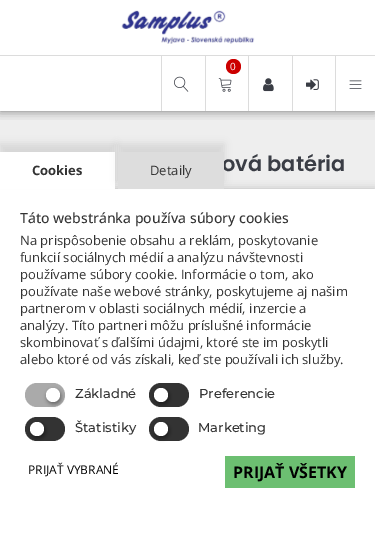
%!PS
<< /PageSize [375 548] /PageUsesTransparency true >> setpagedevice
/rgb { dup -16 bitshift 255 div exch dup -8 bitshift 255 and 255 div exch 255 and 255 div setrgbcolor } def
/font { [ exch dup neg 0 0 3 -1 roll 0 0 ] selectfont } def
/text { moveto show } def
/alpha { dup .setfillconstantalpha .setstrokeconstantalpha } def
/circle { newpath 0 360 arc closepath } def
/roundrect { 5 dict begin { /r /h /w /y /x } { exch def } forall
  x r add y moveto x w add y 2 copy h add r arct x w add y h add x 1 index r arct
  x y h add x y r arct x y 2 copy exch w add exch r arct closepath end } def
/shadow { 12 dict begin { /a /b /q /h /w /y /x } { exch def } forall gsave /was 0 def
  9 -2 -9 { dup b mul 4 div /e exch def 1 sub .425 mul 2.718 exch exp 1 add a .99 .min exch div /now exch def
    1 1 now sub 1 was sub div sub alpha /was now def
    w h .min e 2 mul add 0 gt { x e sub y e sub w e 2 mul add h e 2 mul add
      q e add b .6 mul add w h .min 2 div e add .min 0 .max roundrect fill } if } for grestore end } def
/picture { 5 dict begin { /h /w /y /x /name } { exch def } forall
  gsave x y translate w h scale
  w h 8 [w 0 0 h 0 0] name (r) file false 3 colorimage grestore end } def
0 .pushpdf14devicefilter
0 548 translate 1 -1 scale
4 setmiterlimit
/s1 { /OpenSans-Regular 10 font 16#FFFFFF rgb } def
/s2 { /Poppins-SemiBold 21 font 16#3A3D45 rgb } def
/s3 { /OpenSans-Bold 13 font 16#333333 rgb } def
/s4 { /OpenSans-Regular 13 font 16#333333 rgb } def
/s5 { /OpenSans-Medium 14 font 16#333333 rgb } def
/s6 { /Montserrat-Medium 13 font 16#333333 rgb } def
/s7 { /OpenSans-Regular 12 font 16#000000 rgb } def
/s8 { /OpenSans-Bold 16 font 16#000000 rgb } def
16#FFFFFF rgb
0 0 375 548 rectfill
16#EEEEEE rgb
0 111 375 78 rectfill
gsave
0 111 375 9 rectclip
16#000000 rgb
0 0 375 111 0 5 0.5 shadow
grestore
16#DCDCDC rgb
0 55 375 1 rectfill
(pic1.raw) 121 10 134 34 picture
161 56 1 55 rectfill
(pic2.raw) 174 76 15 16 picture
205 56 1 55 rectfill
16#CC0000 rgb
233.5 66.5 7.5 circle fill
s1
(0) 230 70 text
(pic3.raw) 218 78 14 14 picture
16#DCDCDC rgb
248 56 1 55 rectfill
(pic4.raw) 263 78 11 14 picture
292 56 1 55 rectfill
(pic5.raw) 306 79 13 11 picture
335 56 1 55 rectfill
(pic6.raw) 349 80 13 9 picture
s2
(ová batéria) 222 171 text
16#000000 rgb
0 189 375 359 0 4 0.2 shadow
16#FFFFFF rgb
0 189 375 359 rectfill
16#000000 rgb
0 144 115 37 0 4 0.1 shadow
16#FFFFFF rgb
0 152 115 37 rectfill
s3
(Cookies) 32 175 text
16#000000 rgb
118 144 106 37 0 4 0.1 shadow
16#DDDDDD rgb
118 152 106 37 rectfill
s4
(Detaily) 150 175 text
s5
(Táto webstránka používa súbory cookies) 20 223 text
s4
(Na prispôsobenie obsahu a reklám, poskytovanie) 20 245 text
(funkcií sociálnych médií a analýzu návštevnosti) 20 262 text
(používame súbory cookie. Informácie o tom, ako) 20 279 text
(používate naše webové stránky, poskytujeme aj našim) 20 296 text
(partnerom v oblasti sociálnych médií, inzercie a) 20 313 text
(analýzy. Títo partneri môžu príslušné informácie) 20 330 text
(skombinovať s ďalšími údajmi, ktoré ste im poskytli) 20 347 text
(alebo ktoré od vás získali, keď ste používali ich služby.) 20 364 text
16#AAAAAA rgb
25 383 40 24 12 roundrect fill
16#000000 rgb
47 390 14 14 7 2 0.4 shadow
16#FFFFFF rgb
53 395 7 circle fill
s6
(Základné) 75 398 text
149 383 40 24 12 roundrect fill
16#000000 rgb
155 390 14 14 7 2 0.4 shadow
16#FFFFFF rgb
161 395 7 circle fill
s6
(Preferencie) 199 398 text
25 417 40 24 12 roundrect fill
16#000000 rgb
31 424 14 14 7 2 0.4 shadow
16#FFFFFF rgb
37 429 7 circle fill
s6
(Štatistiky) 75 432 text
149 417 40 24 12 roundrect fill
16#000000 rgb
155 424 14 14 7 2 0.4 shadow
16#FFFFFF rgb
161 429 7 circle fill
s6
(Marketing) 198 432 text
s7
(PRIJAŤ VYBRANÉ) 28 474 text
16#6CBF71 rgb
225 456 130 32 rectfill
s8
(PRIJAŤ VŠETKY) 233 478 text
.poppdf14devicefilter showpage
